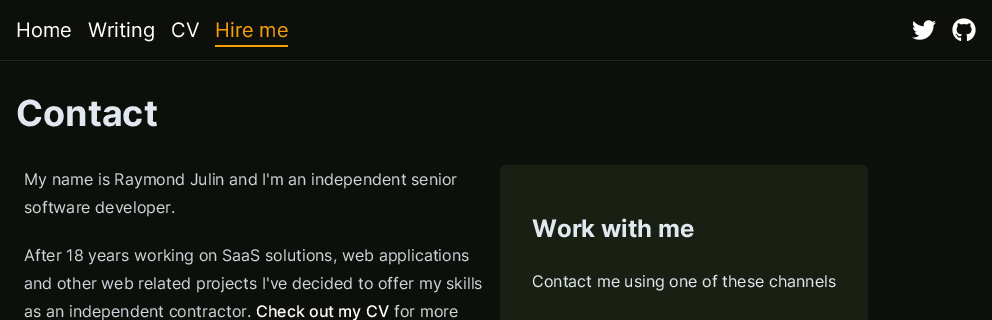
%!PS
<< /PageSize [992 320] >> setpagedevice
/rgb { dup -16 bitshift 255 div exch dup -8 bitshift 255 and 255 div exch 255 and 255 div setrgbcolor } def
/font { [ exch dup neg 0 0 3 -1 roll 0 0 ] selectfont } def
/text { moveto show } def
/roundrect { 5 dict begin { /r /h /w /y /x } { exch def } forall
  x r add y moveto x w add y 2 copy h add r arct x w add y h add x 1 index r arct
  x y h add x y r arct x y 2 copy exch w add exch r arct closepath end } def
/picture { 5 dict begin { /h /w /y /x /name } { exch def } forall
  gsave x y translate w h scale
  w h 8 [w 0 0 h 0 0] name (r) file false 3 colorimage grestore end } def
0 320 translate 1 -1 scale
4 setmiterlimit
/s1 { /Inter-Regular 20 font 16#FFFFFF rgb } def
/s2 { /Inter-Regular 20 font 16#F59E0B rgb } def
/s3 { /Inter-Bold 36 font 16#E2E8F0 rgb } def
/s4 { /Inter-Regular 16 font 16#D1D5DB rgb } def
/s5 { /Inter-Medium 16 font 16#FFFFFF rgb } def
/s6 { /Inter-Bold 24 font 16#E2E8F0 rgb } def
/s7 { /Inter-Regular 16 font 16#E2E8F0 rgb } def
16#0D100A rgb
0 0 992 320 rectfill
16#20282D rgb
0 60 992 1 rectfill
s1
(Home) 16 37 text
(Writing) 88 37 text
(CV) 171 37 text
s2
(Hire me) 215 37 text
215 45 73 2 rectfill
(pic1.raw) 912 20 24 20 picture
(pic2.raw) 952 18 24 23 picture
s3
(Contact) 16 126 text
s4
(My name is Raymond Julin and I'm an independent senior) 24 185 text
(software developer.) 24 213 text
(After 18 years working on SaaS solutions, web applications) 24 261 text
(and other web related projects I've decided to offer my skills) 24 289 text
(as an independent contractor.) 24 317 text
s5
(Check out my CV) 256 317 text
s4
(for more) 394 317 text
16#192013 rgb
500 165 368 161 6 roundrect fill
s6
(Work with me) 532 237 text
s7
(Contact me using one of these channels) 532 287 text
showpage
